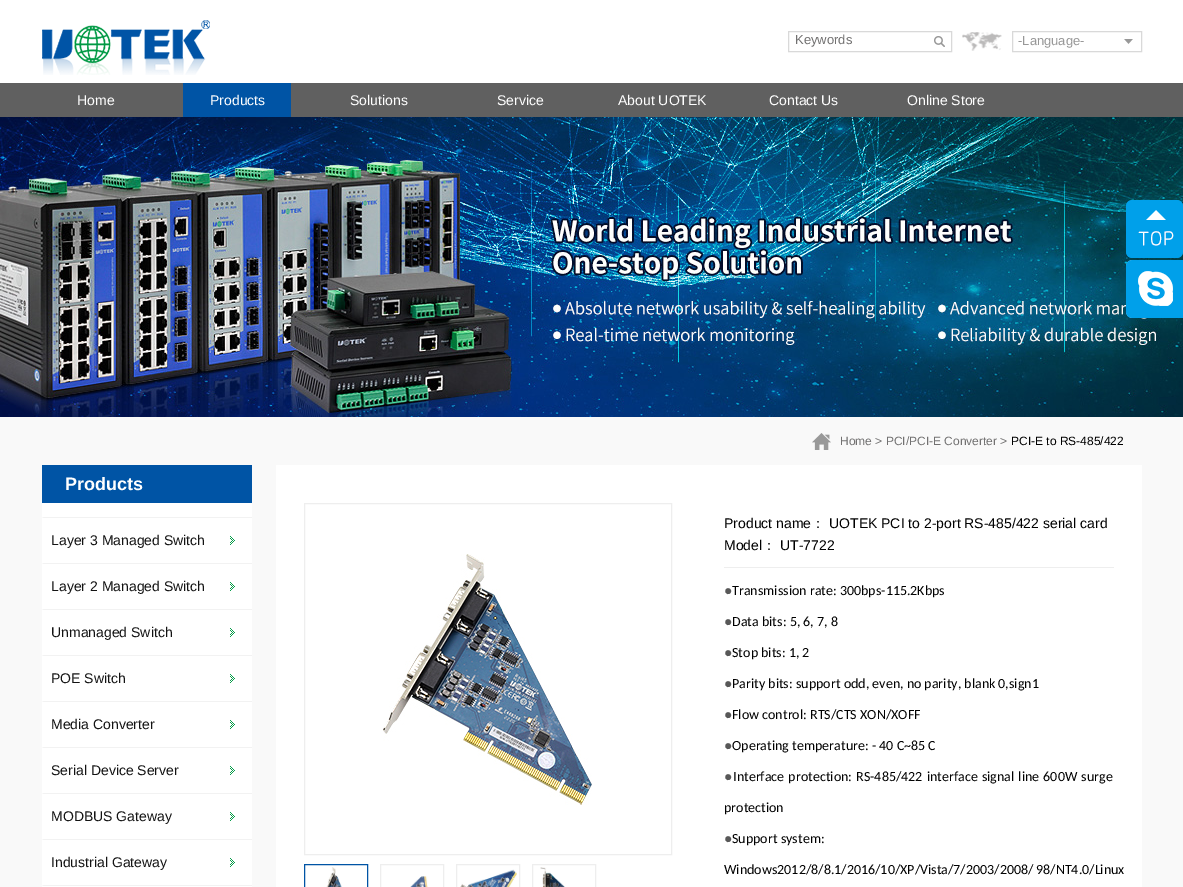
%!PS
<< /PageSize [1183 887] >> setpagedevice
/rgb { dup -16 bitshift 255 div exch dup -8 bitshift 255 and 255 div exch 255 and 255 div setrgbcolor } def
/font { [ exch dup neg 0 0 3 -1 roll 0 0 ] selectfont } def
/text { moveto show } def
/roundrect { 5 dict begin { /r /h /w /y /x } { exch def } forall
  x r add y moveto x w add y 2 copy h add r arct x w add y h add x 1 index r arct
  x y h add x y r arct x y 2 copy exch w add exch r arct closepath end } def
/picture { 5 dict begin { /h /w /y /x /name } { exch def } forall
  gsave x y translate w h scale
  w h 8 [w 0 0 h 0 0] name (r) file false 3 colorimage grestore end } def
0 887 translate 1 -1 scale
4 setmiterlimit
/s1 { /LiberationSans-Regular 13 font 16#727171 rgb } def
/s2 { /LiberationSans-Regular 13 font 16#989898 rgb } def
/s3 { /LiberationSans-Regular 14 font 16#FFFFFF rgb } def
/s4 { /LiberationSans-Regular 12 font 16#727171 rgb } def
/s5 { /LiberationSans-Regular 12 font 16#000000 rgb } def
/s6 { /LiberationSans-Bold 18 font 16#FFFFFF rgb } def
/s7 { /LiberationSans-Regular 14 font 16#131313 rgb } def
/s8 { /LiberationSans-Regular 14 font 16#000000 rgb } def
/s9 { /WenQuanYiZenHei-Medium 14 font 16#000000 rgb } def
/s10 { /LiberationSerif-Regular 14 font 16#585858 rgb } def
/s11 { /Carlito-Regular 14 font 16#000000 rgb } def
16#FFFFFF rgb
0 0 1183 887 rectfill
(pic1.raw) 42 20 168 55 picture
16#D9D9D9 rgb
788.5 31.5 163 20 rectstroke
s1
(Keywords) 795 44 text
(pic2.raw) 934 36 11 11 picture
(pic3.raw) 962 32 40 19 picture
(pic4.raw) 1124 39 9 5 picture
16#D9D9D9 rgb
1012.5 31.5 129 20 rectstroke
s2
(-Language-) 1018 45 text
16#606060 rgb
0 83 1183 34 rectfill
s3
(Home) 77 105 text
16#0054A5 rgb
183 83 108 34 rectfill
s3
(Products) 210 105 text
(Solutions) 350 105 text
(Service) 497 105 text
(About UOTEK) 618 105 text
(Contact Us) 769 105 text
(Online Store) 907 105 text
(pic5.raw) 0 117 1183 300 picture
16#00A0EA rgb
1126 200 57 58 6 roundrect fill
(pic6.raw) 1126 200 57 58 picture
1126 260 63 58 6 roundrect fill
(pic7.raw) 1126 260 47 58 picture
16#F9F9F9 rgb
0 417 1183 470 rectfill
(pic8.raw) 812 433 19 17 picture
s4
(Home > PCI/PCI-E Converter >) 840 445 text
s5
(PCI-E to RS-485/422) 1011 445 text
16#FFFFFF rgb
42 503 210 384 rectfill
16#0054A5 rgb
42 465 210 38 rectfill
s6
(Products) 65 490 text
(pic9.raw) 230 536 5 9 picture
16#F2F2F2 rgb
42 517 moveto 252 517 lineto 252 518 lineto 44 518 lineto closepath fill
252 564 moveto 42 564 lineto 44 563 lineto 252 563 lineto closepath fill
s7
(Layer 3 Managed Switch) 51 545 text
(pic9.raw) 230 582 5 9 picture
16#F2F2F2 rgb
252 610 moveto 42 610 lineto 44 609 lineto 252 609 lineto closepath fill
s7
(Layer 2 Managed Switch) 51 591 text
(pic9.raw) 230 628 5 9 picture
16#F2F2F2 rgb
252 656 moveto 42 656 lineto 44 655 lineto 252 655 lineto closepath fill
s7
(Unmanaged Switch) 51 637 text
(pic9.raw) 230 674 5 9 picture
16#F2F2F2 rgb
252 702 moveto 42 702 lineto 44 701 lineto 252 701 lineto closepath fill
s7
(POE Switch) 51 683 text
(pic9.raw) 230 720 5 9 picture
16#F2F2F2 rgb
252 748 moveto 42 748 lineto 44 747 lineto 252 747 lineto closepath fill
s7
(Media Converter) 51 729 text
(pic9.raw) 230 766 5 9 picture
16#F2F2F2 rgb
252 794 moveto 42 794 lineto 44 793 lineto 252 793 lineto closepath fill
s7
(Serial Device Server) 51 775 text
(pic9.raw) 230 812 5 9 picture
16#F2F2F2 rgb
252 840 moveto 42 840 lineto 44 839 lineto 252 839 lineto closepath fill
s7
(MODBUS Gateway) 51 821 text
(pic9.raw) 230 858 5 9 picture
16#F2F2F2 rgb
252 886 moveto 42 886 lineto 44 885 lineto 252 885 lineto closepath fill
s7
(Industrial Gateway) 51 867 text
16#FFFFFF rgb
276 465 866 422 rectfill
16#EEEEEE rgb
304.5 503.5 367 351 rectstroke
(pic10.raw) 383 554 209 251 picture
16#0054A5 rgb
304.5 864.5 63 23 rectstroke
(pic11.raw) 326 867 16 20 picture
16#EEEEEE rgb
380.5 864.5 63 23 rectstroke
(pic12.raw) 410 876 18 11 picture
456.5 864.5 63 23 rectstroke
(pic13.raw) 460 869 57 18 picture
532.5 864.5 63 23 rectstroke
(pic14.raw) 540 867 25 20 picture
724 567 390 1 rectfill
s8
(Product name) 724 528 text
s9
(：) 811 528 text
s8
(UOTEK PCI to 2-port RS-485/422 serial card) 829 528 text
(Model) 724 550 text
s9
(：) 762 550 text
s8
(UT-7722) 780 550 text
s10
(●) 724 595 text
s11
(Transmission rate: 300bps-115.2Kbps) 732 595 text
s10
(●) 724 626 text
s11
(Data bits: 5, 6, 7, 8) 732 626 text
s10
(●) 724 657 text
s11
(Stop bits: 1, 2) 732 657 text
s10
(●) 724 688 text
s11
(Parity bits: support odd, even, no parity, blank 0,sign1) 732 688 text
s10
(●) 724 719 text
s11
(Flow control: RTS/CTS XON/XOFF) 732 719 text
s10
(●) 724 750 text
s11
(Operating temperature: - 40 C~85 C) 732 750 text
s10
(●) 724 781 text
/Carlito-Regular 14 font
16#000000 rgb
733 781 moveto 1 0 32 (Interface protection: RS-485/422 interface signal line 600W surge) widthshow
(protection) 724 812 text
s10
(●) 724 843 text
s11
(Support system:) 732 843 text
(Windows2012/8/8.1/2016/10/XP/Vista/7/2003/2008/) 724 874 text
(98/NT4.0/Linux) 1036 874 text
showpage
